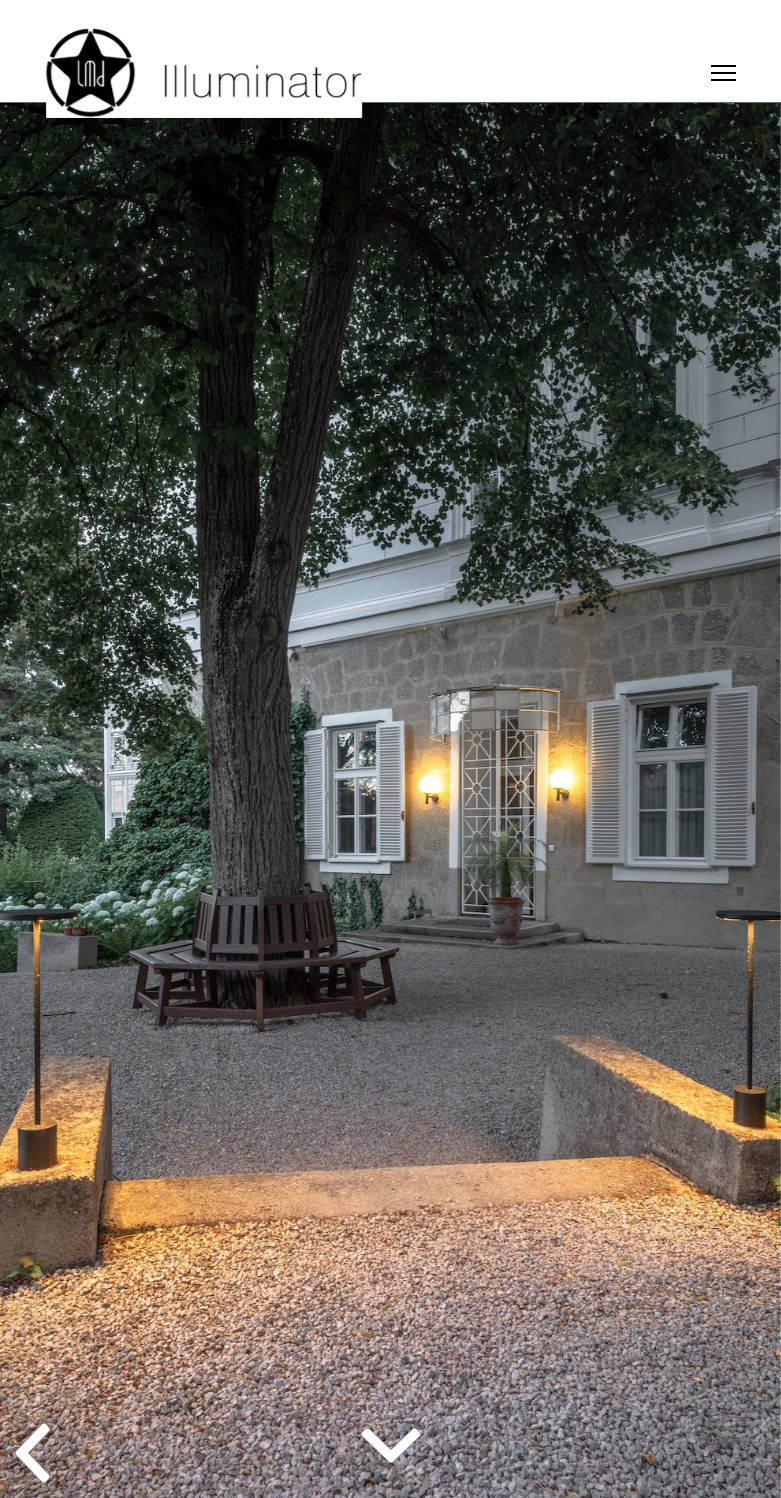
%!PS
<< /PageSize [781 1498] >> setpagedevice
/rgb { dup -16 bitshift 255 div exch dup -8 bitshift 255 and 255 div exch 255 and 255 div setrgbcolor } def
/picture { 5 dict begin { /h /w /y /x /name } { exch def } forall
  gsave x y translate w h scale
  w h 8 [w 0 0 h 0 0] name (r) file false 3 colorimage grestore end } def
0 1498 translate 1 -1 scale
4 setmiterlimit
16#FFFFFF rgb
0 0 781 1498 rectfill
16#666666 rgb
0 102 781 1 rectfill
(pic2.raw) 0 103 781 1395 picture
(pic1.raw) 45 28 318 90 picture
16#000000 rgb
711 65 25 2 rectfill
711 72 25 2 rectfill
711 79 25 2 rectfill
(pic3.raw) 15 1423 35 60 picture
(pic4.raw) 361 1428 60 35 picture
16#E0E5EB rgb
312 599 1 1 rectfill
showpage
